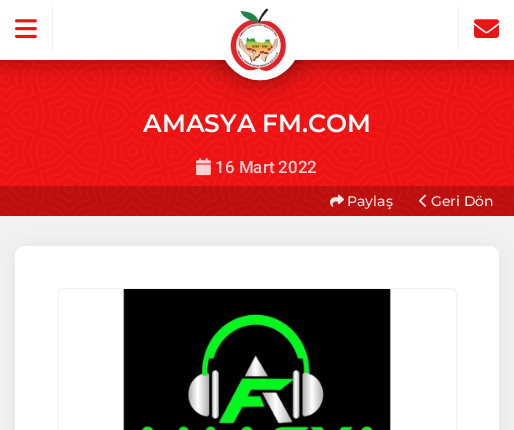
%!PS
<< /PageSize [514 430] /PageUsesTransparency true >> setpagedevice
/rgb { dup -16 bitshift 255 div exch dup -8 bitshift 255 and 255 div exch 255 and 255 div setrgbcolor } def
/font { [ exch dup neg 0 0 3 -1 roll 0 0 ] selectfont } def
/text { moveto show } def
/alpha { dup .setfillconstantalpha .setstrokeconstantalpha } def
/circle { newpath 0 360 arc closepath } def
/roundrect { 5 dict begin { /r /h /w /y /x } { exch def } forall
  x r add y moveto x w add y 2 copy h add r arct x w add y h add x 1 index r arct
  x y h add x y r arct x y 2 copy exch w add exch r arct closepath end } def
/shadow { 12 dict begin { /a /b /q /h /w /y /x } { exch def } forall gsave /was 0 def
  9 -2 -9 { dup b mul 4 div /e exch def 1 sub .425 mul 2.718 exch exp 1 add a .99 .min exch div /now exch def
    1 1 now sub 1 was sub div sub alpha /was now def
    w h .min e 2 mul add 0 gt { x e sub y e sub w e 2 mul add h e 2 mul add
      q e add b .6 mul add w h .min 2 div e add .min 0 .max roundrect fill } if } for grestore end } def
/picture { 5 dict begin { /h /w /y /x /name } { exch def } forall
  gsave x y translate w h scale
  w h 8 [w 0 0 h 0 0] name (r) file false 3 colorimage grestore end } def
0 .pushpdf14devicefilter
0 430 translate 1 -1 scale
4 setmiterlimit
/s1 { /Montserrat-SemiBold 25 font 16#FFFFFF rgb } def
/s2 { /Roboto-Medium 17 font 16#FCD0D0 rgb } def
/s3 { /Montserrat-Medium 14 font 16#F9E7E7 rgb } def
16#F2F2F2 rgb
0 0 514 430 rectfill
16#EE1212 rgb
0 60 514 156 rectfill
(pic4.raw) 0 60 514 156 picture
16#000000 rgb
220 0 80 80 40 12.5 0.4 shadow
16#FFFFFF rgb
260 40 40 circle fill
16#000000 rgb
0 0 514 60 0 12.5 0.4 shadow
16#FFFFFF rgb
0 0 514 60 rectfill
16#F0F0F0 rgb
52 6 1 46 rectfill
(pic1.raw) 15 19 22 19 picture
16#FFFFFF rgb
5 setlinewidth
260 40 37.5 circle stroke
(pic2.raw) 230 8 59 67 picture
16#F0F0F0 rgb
458 6 1 46 rectfill
(pic3.raw) 474 19 25 19 picture
s1
(AMASYA FM.COM) 143 132 text
(pic5.raw) 196 158 15 18 picture
s2
(16 Mart 2022) 215 173 text
16#000000 rgb
15 246 484 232 10 12.5 0.05 shadow
0.2 alpha
0 186 514 30 rectfill
1 alpha
(pic6.raw) 330 194 14 13 picture
s3
(Paylaş) 347 206 text
(pic7.raw) 419 194 7 13 picture
(Geri Dön) 431 206 text
16#FFFFFF rgb
15 246 484 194 10 roundrect fill
16#F2F2F2 rgb
1 setlinewidth
57.5 288.5 399 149 6.5 roundrect stroke
(pic8.raw) 123 289 268 141 picture
.poppdf14devicefilter showpage
